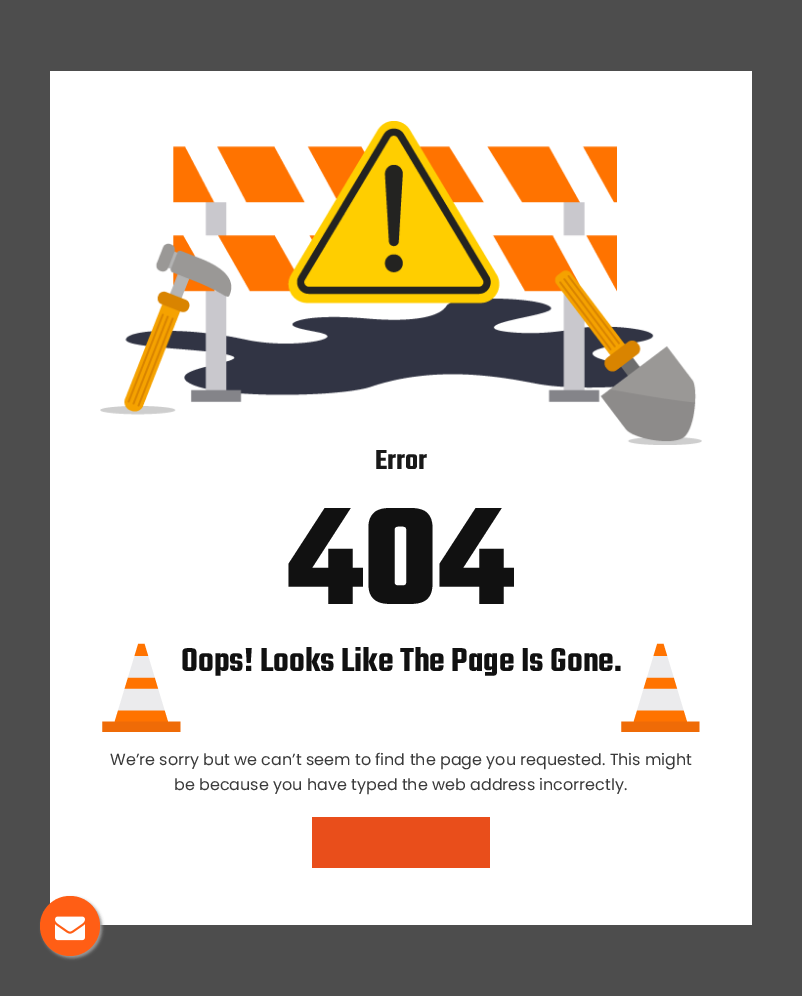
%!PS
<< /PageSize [802 996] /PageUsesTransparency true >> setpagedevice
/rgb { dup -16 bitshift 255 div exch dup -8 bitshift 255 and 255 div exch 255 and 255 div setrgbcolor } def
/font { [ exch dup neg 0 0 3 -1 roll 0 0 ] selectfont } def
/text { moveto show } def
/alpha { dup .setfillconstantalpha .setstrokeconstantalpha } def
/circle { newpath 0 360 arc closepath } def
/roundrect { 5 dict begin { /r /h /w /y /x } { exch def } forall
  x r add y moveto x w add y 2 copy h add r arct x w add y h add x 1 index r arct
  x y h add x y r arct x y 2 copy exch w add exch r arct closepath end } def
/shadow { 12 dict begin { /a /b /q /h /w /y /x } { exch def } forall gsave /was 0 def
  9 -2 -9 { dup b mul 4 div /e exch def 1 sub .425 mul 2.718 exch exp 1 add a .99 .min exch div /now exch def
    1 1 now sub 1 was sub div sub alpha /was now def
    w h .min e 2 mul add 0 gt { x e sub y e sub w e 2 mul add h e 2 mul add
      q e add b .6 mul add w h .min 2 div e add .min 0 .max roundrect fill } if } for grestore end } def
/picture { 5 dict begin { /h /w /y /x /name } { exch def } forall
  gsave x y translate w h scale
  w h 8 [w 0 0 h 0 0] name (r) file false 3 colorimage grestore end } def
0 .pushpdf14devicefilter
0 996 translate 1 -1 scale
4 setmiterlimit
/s1 { /Teko-SemiBold 30 font 16#191919 rgb } def
/s2 { /Teko-Bold 150 font 16#111111 rgb } def
/s3 { /Teko-SemiBold 36 font 16#111111 rgb } def
/s4 { /Poppins-Regular 16 font 16#3A3A3A rgb } def
16#4D4D4D rgb
0 0 802 996 rectfill
16#FFFFFF rgb
50 71 702 854 rectfill
(pic1.raw) 100 121 602 324 picture
s1
(Error) 375 469 text
s2
(404) 287 604 text
(pic2.raw) 102 643 79 89 picture
s3
(Oops! Looks Like The Page Is Gone.) 181 671 text
(pic2.raw) 621 643 79 89 picture
s4
(We’re sorry but we can’t seem to find the page you requested. This might) 110 765 text
(be because you have typed the web address incorrectly.) 174 790 text
16#E94E1B rgb
312 817 178 51 rectfill
16#999999 rgb
42 898 60 60 30 1.5 1 shadow
16#FF5E15 rgb
70 926 30 circle fill
(pic3.raw) 55 916 30 25 picture
.poppdf14devicefilter showpage
